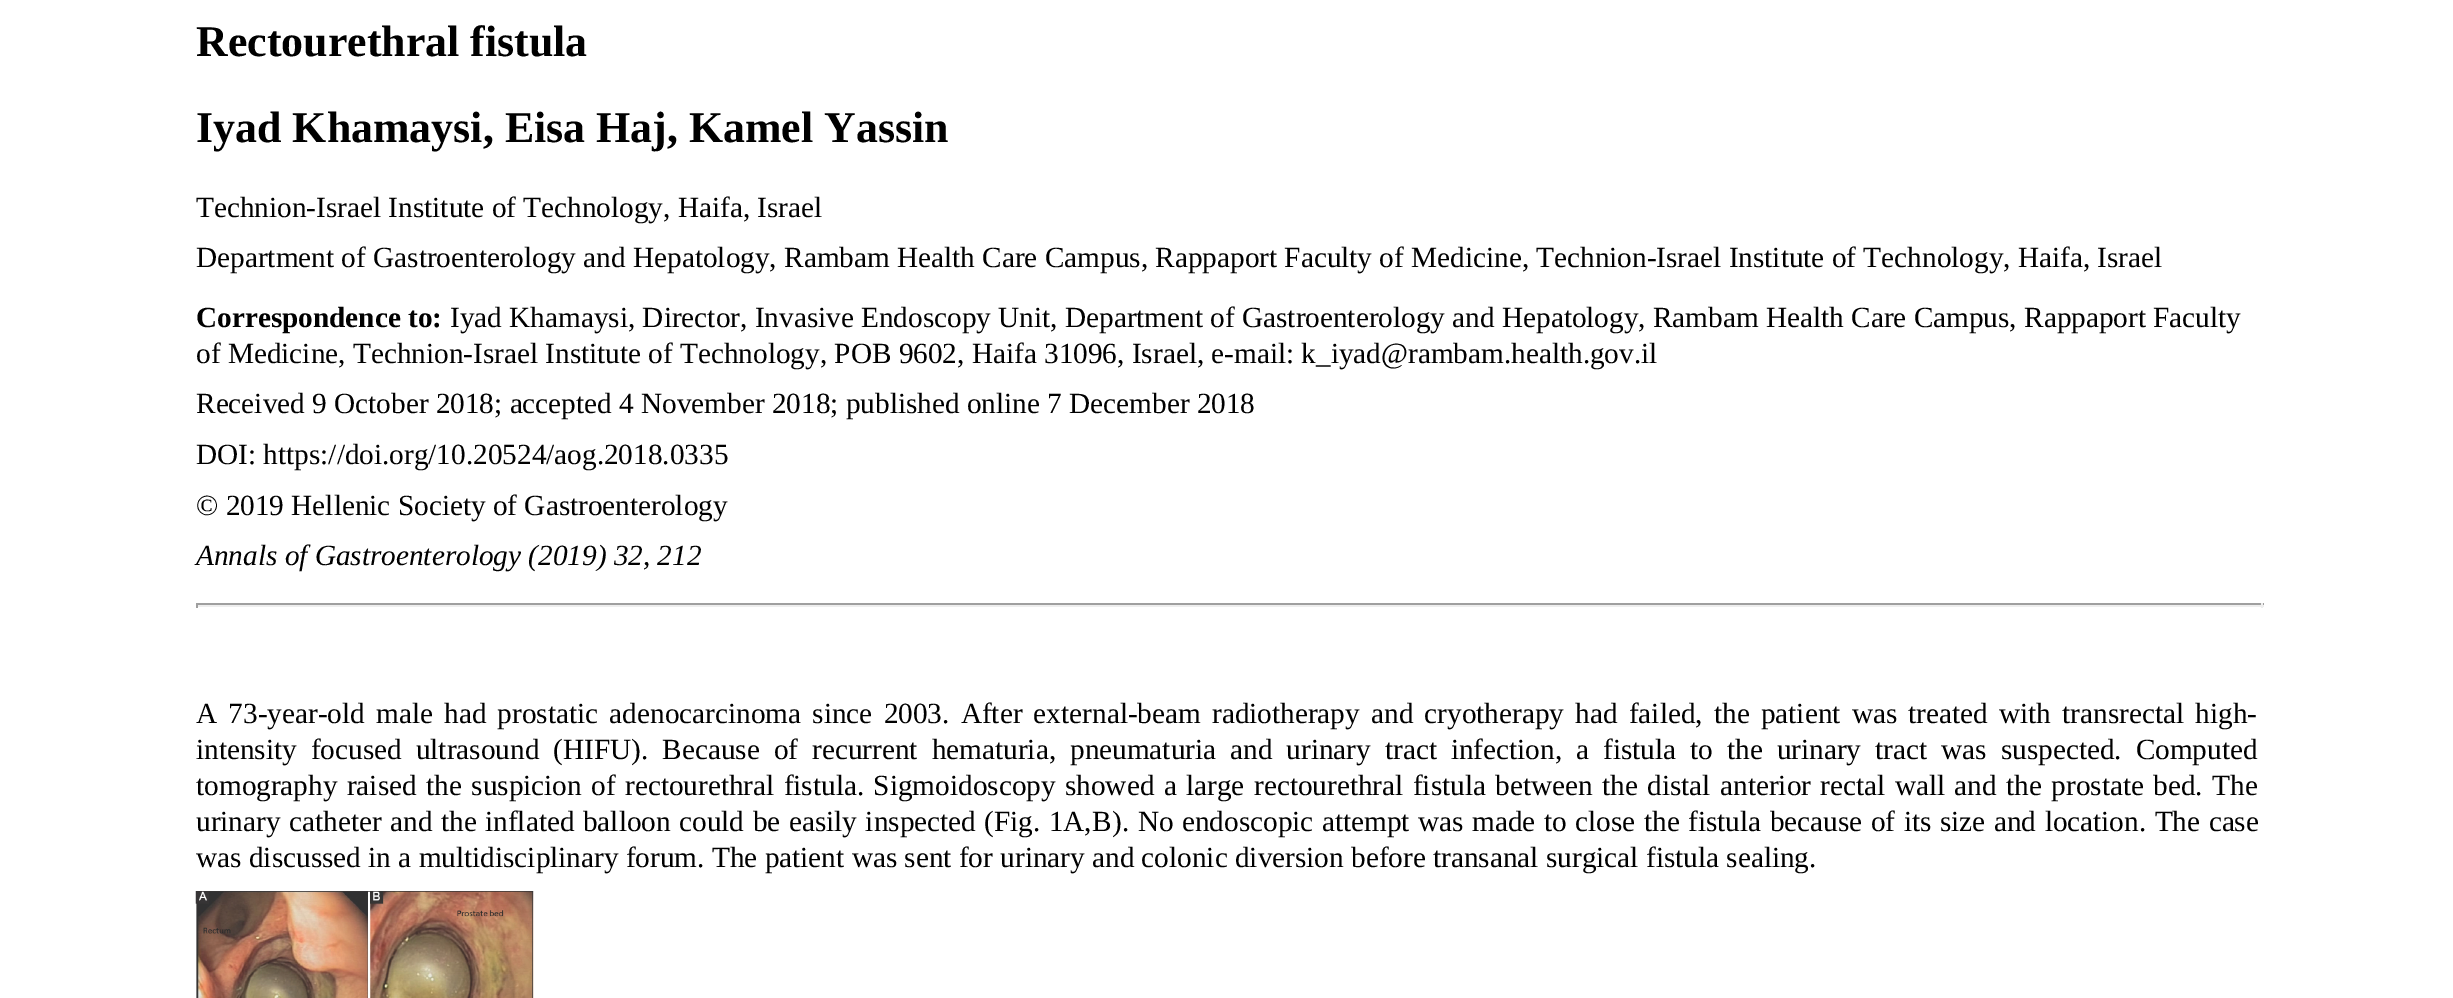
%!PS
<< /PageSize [2453 998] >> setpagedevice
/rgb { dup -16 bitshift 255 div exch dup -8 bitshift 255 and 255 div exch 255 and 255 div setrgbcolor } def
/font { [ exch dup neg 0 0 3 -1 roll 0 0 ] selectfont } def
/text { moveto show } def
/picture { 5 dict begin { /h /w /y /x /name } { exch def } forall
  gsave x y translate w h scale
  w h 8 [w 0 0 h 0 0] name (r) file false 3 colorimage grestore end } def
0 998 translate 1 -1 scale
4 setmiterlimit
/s1 { /LiberationSerif-Bold 43.9 font 16#000000 rgb } def
/s2 { /LiberationSerif-Regular 29.25 font 16#000000 rgb } def
/s3 { /LiberationSerif-Bold 29.25 font 16#000000 rgb } def
/s4 { /LiberationSerif-Italic 29.25 font 16#000000 rgb } def
16#FFFFFF rgb
0 0 2453 998 rectfill
s1
(Rectourethral fistula) 196 56 text
(Iyad Khamaysi, Eisa Haj, Kamel Yassin) 196 142 text
s2
(Technion-Israel Institute of Technology, Haifa, Israel) 196 217 text
(Department of Gastroenterology and Hepatology, Rambam Health Care Campus, Rappaport Faculty of Medicine, Technion-Israel Institute of Technology, Haifa, Israel) 196 267 text
s3
(Correspondence to:) 196 327 text
s2
(Iyad Khamaysi, Director, Invasive Endoscopy Unit, Department of Gastroenterology and Hepatology, Rambam Health Care Campus, Rappaport Faculty) 450 327 text
(of Medicine, Technion-Israel Institute of Technology, POB 9602, Haifa 31096, Israel, e-mail: k_iyad@rambam.health.gov.il) 196 363 text
(Received 9 October 2018; accepted 4 November 2018; published online 7 December 2018) 196 413 text
(DOI: https://doi.org/10.20524/aog.2018.0335) 196 464 text
(© 2019 Hellenic Society of Gastroenterology) 196 515 text
s4
(Annals of Gastroenterology \(2019\) 32, 212) 196 565 text
16#9F9F9F rgb
196 603 2068 2 rectfill
16#EEEEEE rgb
2261 603 2 5 rectfill
196 605 2068 2 rectfill
16#9F9F9F rgb
196 603 2 5 rectfill
/LiberationSerif-Regular 29.25 font
16#000000 rgb
196 723 moveto 3.9 0 32 (A 73-year-old male had prostatic adenocarcinoma since 2003. After external-beam radiotherapy and cryotherapy had failed, the patient was treated with transrectal high-) widthshow
196 759 moveto 6.7 0 32 (intensity focused ultrasound \(HIFU\). Because of recurrent hematuria, pneumaturia and urinary tract infection, a fistula to the urinary tract was suspected. Computed) widthshow
196 795 moveto 2.1 0 32 (tomography raised the suspicion of rectourethral fistula. Sigmoidoscopy showed a large rectourethral fistula between the distal anterior rectal wall and the prostate bed. The) widthshow
196 831 moveto 1.2 0 32 (urinary catheter and the inflated balloon could be easily inspected \() widthshow
994 831 moveto 1 0 32 (Fig. 1A,B) widthshow
1112 831 moveto 1.2 0 32 (\). No endoscopic attempt was made to close the fistula because of its size and location. The case) widthshow
(was discussed in a multidisciplinary forum. The patient was sent for urinary and colonic diversion before transanal surgical fistula sealing.) 196 867 text
(pic1.raw) 195 891 339 107 picture
showpage
